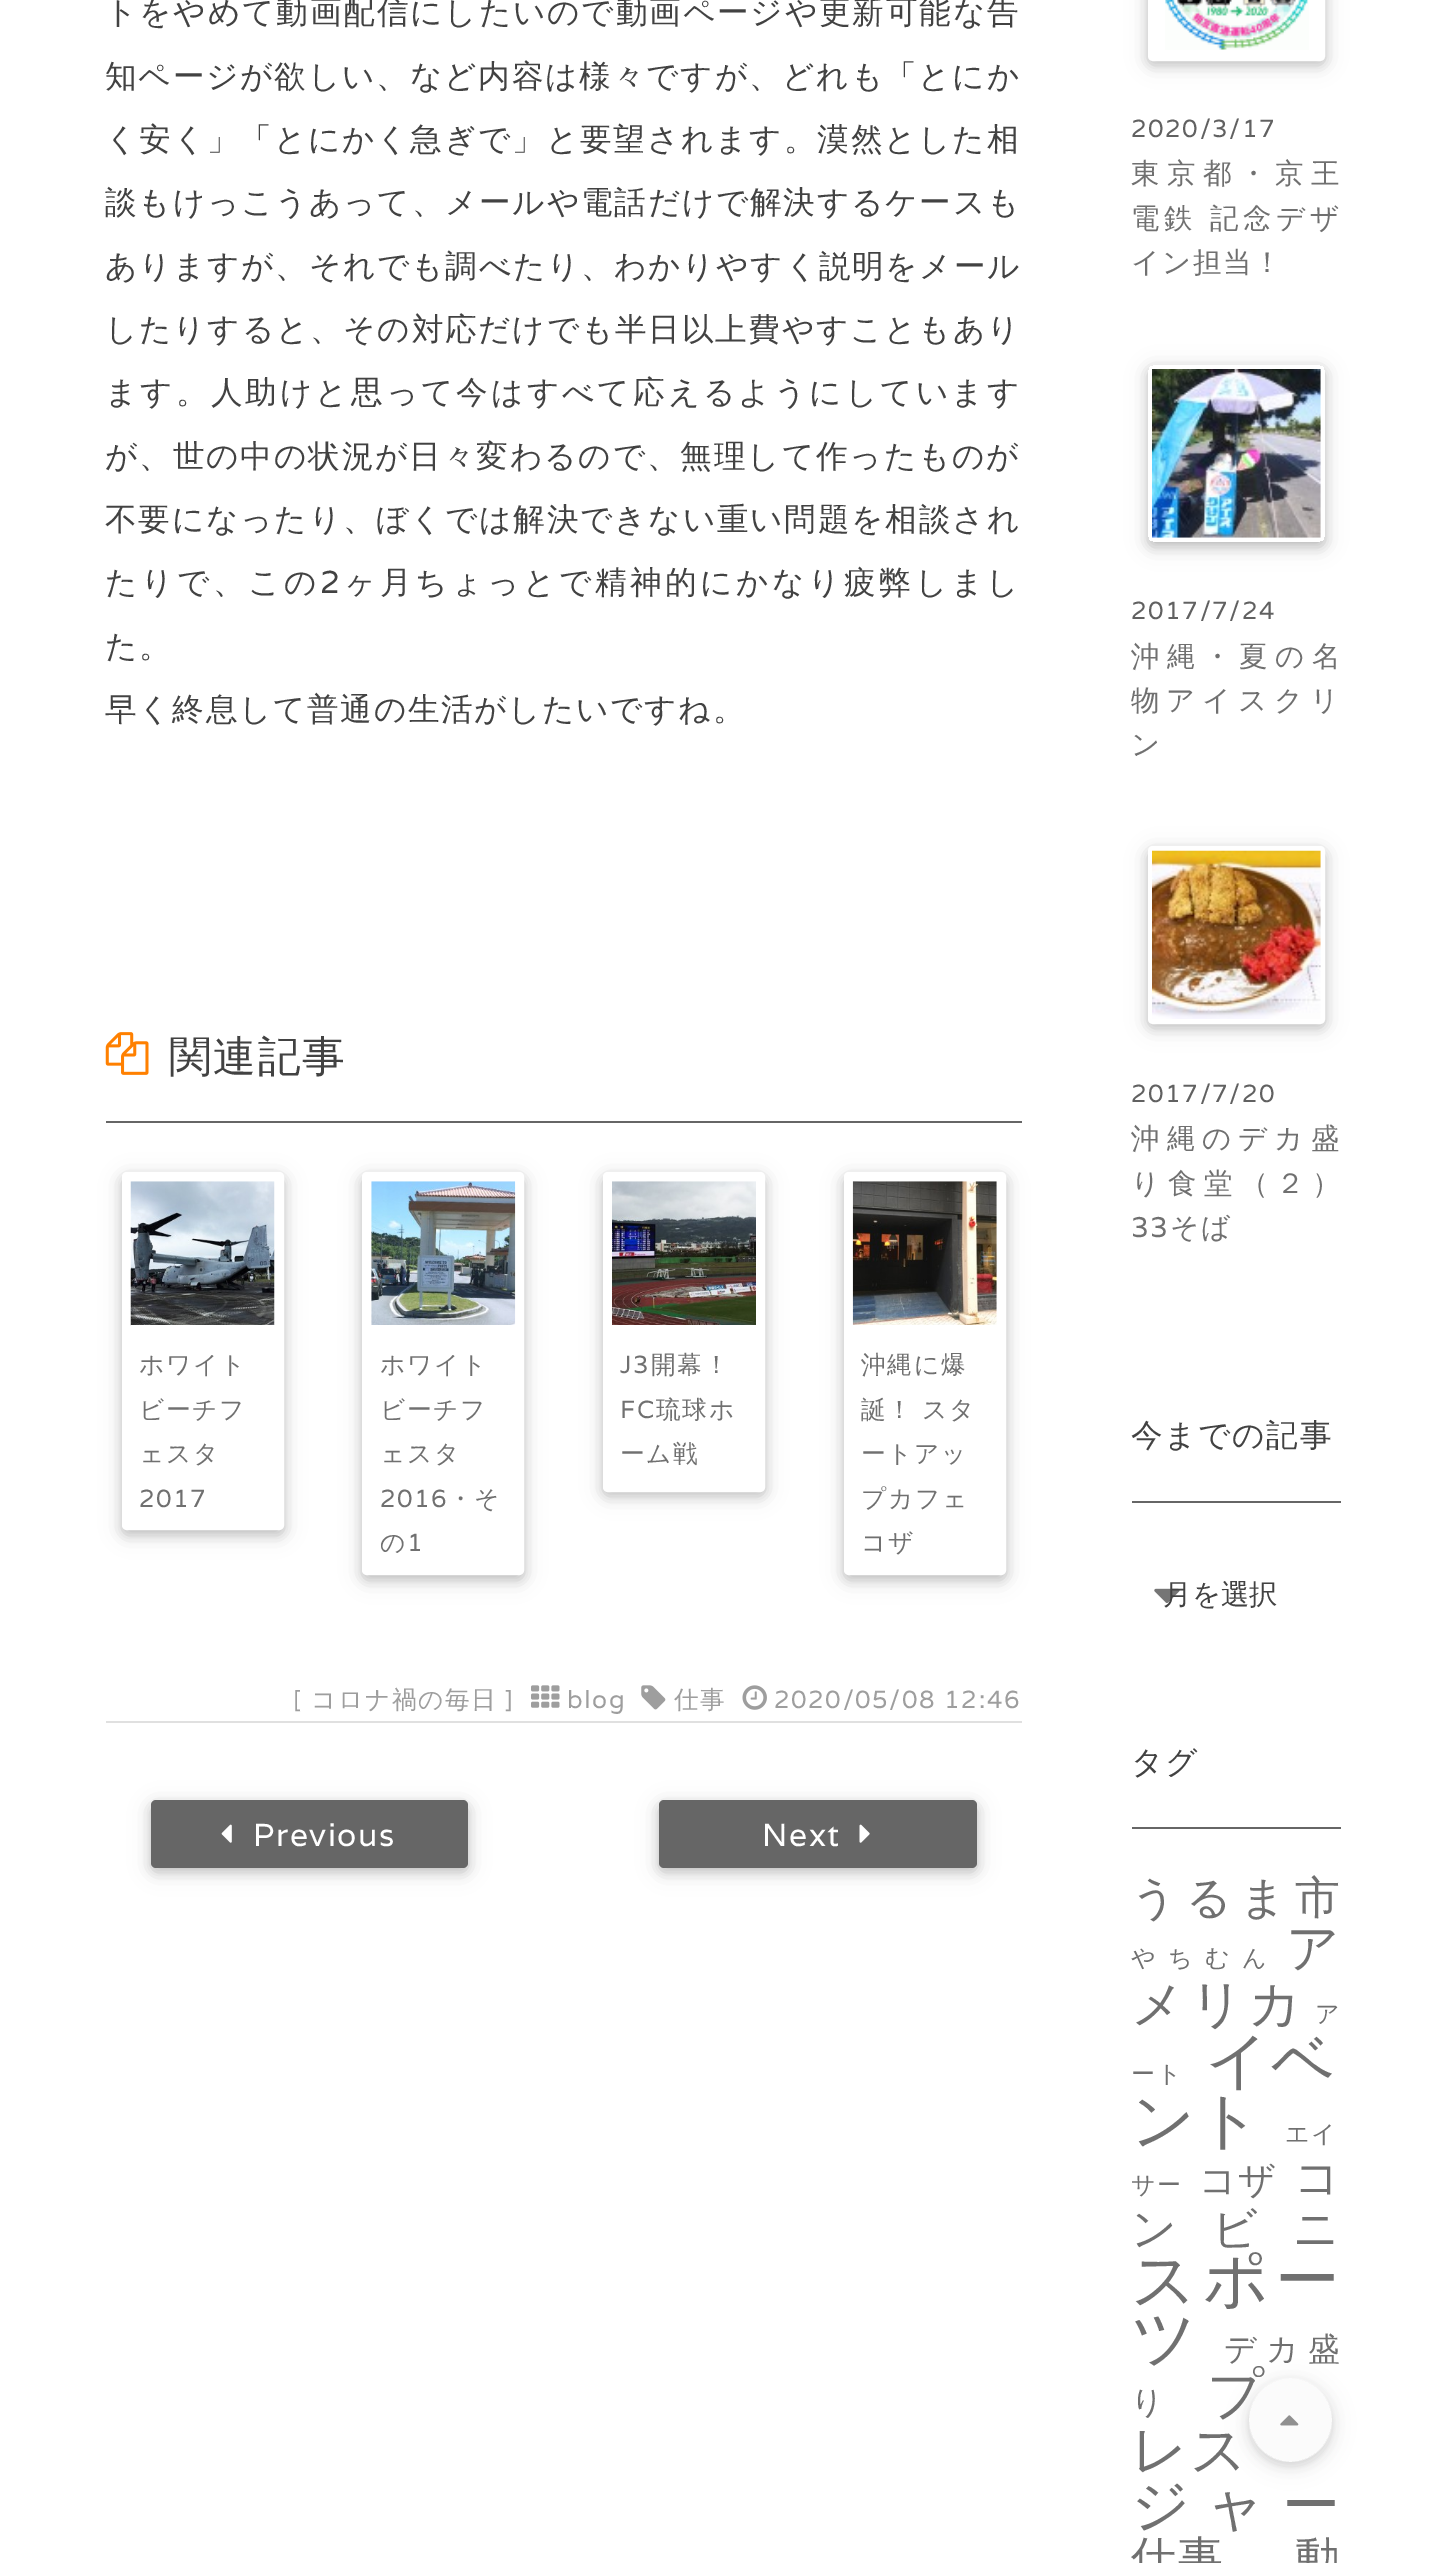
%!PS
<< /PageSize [1445 2563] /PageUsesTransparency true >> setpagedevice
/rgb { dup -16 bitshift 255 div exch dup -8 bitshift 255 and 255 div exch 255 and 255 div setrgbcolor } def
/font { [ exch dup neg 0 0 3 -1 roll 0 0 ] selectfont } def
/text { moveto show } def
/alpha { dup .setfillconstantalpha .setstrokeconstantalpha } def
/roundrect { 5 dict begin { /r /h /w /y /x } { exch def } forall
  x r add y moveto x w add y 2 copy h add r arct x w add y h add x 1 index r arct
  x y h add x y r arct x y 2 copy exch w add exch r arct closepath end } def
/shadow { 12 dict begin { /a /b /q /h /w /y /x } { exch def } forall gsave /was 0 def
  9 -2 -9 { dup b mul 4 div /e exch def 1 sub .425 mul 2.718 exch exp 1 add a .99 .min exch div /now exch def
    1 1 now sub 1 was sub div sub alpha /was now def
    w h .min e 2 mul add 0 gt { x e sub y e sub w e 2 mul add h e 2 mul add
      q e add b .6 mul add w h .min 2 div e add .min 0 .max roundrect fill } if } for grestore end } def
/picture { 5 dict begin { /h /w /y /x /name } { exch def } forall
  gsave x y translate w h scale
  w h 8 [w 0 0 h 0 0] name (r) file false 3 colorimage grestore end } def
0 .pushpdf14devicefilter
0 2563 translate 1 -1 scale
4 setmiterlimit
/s1 { /WenQuanYiZenHei-Medium 28.5 font 16#424242 rgb } def
16#FFFFFF rgb
0 0 1445 2563 rectfill
/WenQuanYiZenHei-Medium 31.7 font
16#424242 rgb
105 23 moveto 1.8 0 (トをやめて動画配信にしたいので動画ページや更新可能な告) ashow
105 87 moveto 1.75 0 (知ページが欲しい、など内容は様々ですが、どれも「とにか) ashow
105 150 moveto 1.75 0 (く安く」「とにかく急ぎで」と要望されます。漠然とした相) ashow
105 213 moveto 1.7 0 (談もけっこうあって、メールや電話だけで解決するケースも) ashow
105 277 moveto 1.65 0 (ありますが、それでも調べたり、わかりやすく説明をメール) ashow
105 340 moveto 1.7 0 (したりすると、その対応だけでも半日以上費やすこともあり) ashow
105 403 moveto 3 0 (ます。人助けと思って今はすべて応えるようにしています) ashow
105 467 moveto 1.8 0 (が、世の中の状況が日々変わるので、無理して作ったものが) ashow
105 530 moveto 1.75 0 (不要になったり、ぼくでは解決できない重い問題を相談され) ashow
105 593 moveto 3.5 0 (たりで、この) ashow
/Varela-Regular 31.7 font
320 593 moveto 3.5 0 (2) ashow
/WenQuanYiZenHei-Medium 31.7 font
344 593 moveto 3.5 0 (ヶ月ちょっとで精神的にかなり疲弊しまし) ashow
105 657 moveto 1.6 0 (た。) ashow
105 720 moveto 1.6 0 (早く終息して普通の生活がしたいですね。) ashow
16#666666 rgb
106 1121 916 2 rectfill
(pic1.raw) 105 1032 44 43 picture
/WenQuanYiZenHei-Medium 42.75 font
16#424242 rgb
169 1071 moveto 1.6 0 (関連記事) ashow
16#000000 rgb
122 1177 162 358 5 11 0.12 shadow
122 1177 162 358 5 5.5 0.16 shadow
16#FFFFFF rgb
9 setlinewidth
126.5 1176.5 153 349 0.5 roundrect stroke
(pic2.raw) 130 1181 145 145 picture
131 1325 144 196 rectfill
/WenQuanYiZenHei-Medium 24.75 font
16#707070 rgb
139 1373 moveto 1.6 0 (ホワイト) ashow
139 1418 moveto 1.6 0 (ビーチフ) ashow
139 1462 moveto 1.6 0 (ェスタ) ashow
/Varela-Regular 24.75 font
139 1507 moveto 1.6 0 (2017) ashow
16#000000 rgb
362 1177 162 403 5 11 0.12 shadow
362 1177 162 403 5 5.5 0.16 shadow
16#FFFFFF rgb
366.5 1176.5 153 394 0.5 roundrect stroke
(pic3.raw) 371 1181 145 144 picture
371 1325 144 241 rectfill
/WenQuanYiZenHei-Medium 24.75 font
16#707070 rgb
380 1373 moveto 1.6 0 (ホワイト) ashow
380 1418 moveto 1.6 0 (ビーチフ) ashow
380 1462 moveto 1.6 0 (ェスタ) ashow
/Varela-Regular 24.75 font
380 1507 moveto 1.6 0 (2016) ashow
/WenQuanYiZenHei-Medium 24.75 font
448 1507 moveto 1.6 0 (・そ) ashow
380 1551 moveto 1.6 0 (の) ashow
/Varela-Regular 24.75 font
407 1551 moveto 1.6 0 (1) ashow
16#000000 rgb
603 1177 162 319 5 11 0.12 shadow
603 1177 162 319 5 5.5 0.16 shadow
16#FFFFFF rgb
607.5 1176.5 153 311 0.5 roundrect stroke
(pic4.raw) 612 1181 144 144 picture
612 1325 144 158 rectfill
16#707070 rgb
620 1373 moveto 1.6 0 (J3) ashow
/WenQuanYiZenHei-Medium 24.75 font
651 1373 moveto 1.6 0 (開幕！) ashow
/Varela-Regular 24.75 font
620 1418 moveto 1.6 0 (FC) ashow
/WenQuanYiZenHei-Medium 24.75 font
656 1418 moveto 1.6 0 (琉球ホ) ashow
620 1462 moveto 1.6 0 (ーム戦) ashow
16#000000 rgb
844 1177 162 403 5 11 0.12 shadow
844 1177 162 403 5 5.5 0.16 shadow
16#FFFFFF rgb
848.5 1176.5 153 394 0.5 roundrect stroke
(pic5.raw) 852 1181 145 144 picture
853 1325 144 241 rectfill
16#707070 rgb
861 1373 moveto 1.6 0 (沖縄に爆) ashow
861 1418 moveto -1 0 32 1.6 0 (誕！ スタ) awidthshow
861 1462 moveto 1.6 0 (ートアッ) ashow
861 1507 moveto 1.6 0 (プカフェ) ashow
861 1551 moveto 1.6 0 (コザ) ashow
16#E0E0E0 rgb
106 1721 916 2 rectfill
/Varela-Regular 24.75 font
16#9E9E9E rgb
293 1708 moveto 1.6 0 ([) ashow
/WenQuanYiZenHei-Medium 24.75 font
311 1708 moveto 1.6 0 (コロナ禍の毎日) ashow
/Varela-Regular 24.75 font
505 1708 moveto 1.6 0 (]) ashow
(pic6.raw) 531 1685 29 23 picture
567 1708 moveto 1.6 0 (blog) ashow
(pic7.raw) 641 1685 25 25 picture
/WenQuanYiZenHei-Medium 24.75 font
674 1708 moveto 1.6 0 (仕事) ashow
(pic8.raw) 742 1685 25 25 picture
/Varela-Regular 24.75 font
774 1708 moveto 1.6 0 (2020/05/08 12:46) ashow
16#000000 rgb
151 1805 317 67 5 11 0.12 shadow
151 1805 317 67 5 5.5 0.16 shadow
16#666666 rgb
151 1800 317 68 5 roundrect fill
(pic9.raw) 221 1824 11 19 picture
/Varela-Regular 31.7 font
16#FFFFFF rgb
253 1846 moveto 1.6 0 (Previous) ashow
16#000000 rgb
659 1805 318 67 5 11 0.12 shadow
659 1805 318 67 5 5.5 0.16 shadow
16#666666 rgb
659 1800 318 68 5 roundrect fill
16#FFFFFF rgb
762 1846 moveto 1.6 0 (Next) ashow
(pic10.raw) 859 1824 11 19 picture
gsave
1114 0 moveto 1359 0 lineto 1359 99 lineto 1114 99 lineto closepath 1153 -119 moveto 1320 -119 lineto 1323 -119 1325 -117 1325 -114 curveto 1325 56 lineto 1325 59 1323 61 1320 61 curveto 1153 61 lineto 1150 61 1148 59 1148 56 curveto 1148 -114 lineto 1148 -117 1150 -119 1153 -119 curveto closepath eoclip newpath
16#000000 rgb
1148 -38 177 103 5 11 0.12 shadow
grestore
gsave
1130 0 moveto 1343 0 lineto 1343 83 lineto 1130 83 lineto closepath 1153 -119 moveto 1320 -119 lineto 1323 -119 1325 -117 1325 -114 curveto 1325 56 lineto 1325 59 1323 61 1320 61 curveto 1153 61 lineto 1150 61 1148 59 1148 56 curveto 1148 -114 lineto 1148 -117 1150 -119 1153 -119 curveto closepath eoclip newpath
16#000000 rgb
1148 -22 177 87 5 5.5 0.16 shadow
grestore
5 setlinewidth
1150.5 -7.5 172 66 2.5 roundrect stroke
(pic11.raw) 1165 0 144 50 picture
/Varela-Regular 24.75 font
16#616161 rgb
1131 137 moveto 1.6 0 (2020/3/17) ashow
/WenQuanYiZenHei-Medium 28.5 font
16#707070 rgb
1131 183 moveto 7.5 0 (東京都・京王) ashow
1131 228 moveto -1 0 32 4.75 0 (電鉄 記念デザ) awidthshow
1131 272 moveto 1.6 0 (イン担当！) ashow
gsave
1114 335 moveto 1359 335 lineto 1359 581 lineto 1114 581 lineto closepath 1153 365 moveto 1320 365 lineto 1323 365 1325 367 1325 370 curveto 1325 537 lineto 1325 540 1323 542 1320 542 curveto 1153 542 lineto 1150 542 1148 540 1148 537 curveto 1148 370 lineto 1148 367 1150 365 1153 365 curveto closepath eoclip newpath
16#000000 rgb
1148 369 177 178 5 11 0.12 shadow
grestore
gsave
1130 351 moveto 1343 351 lineto 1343 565 lineto 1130 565 lineto closepath 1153 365 moveto 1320 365 lineto 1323 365 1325 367 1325 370 curveto 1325 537 lineto 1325 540 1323 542 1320 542 curveto 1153 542 lineto 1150 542 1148 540 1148 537 curveto 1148 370 lineto 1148 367 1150 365 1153 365 curveto closepath eoclip newpath
16#000000 rgb
1148 369 177 178 5 5.5 0.16 shadow
grestore
(pic12.raw) 1152 369 169 169 picture
/Varela-Regular 24.75 font
16#616161 rgb
1131 619 moveto 1.6 0 (2017/7/24) ashow
/WenQuanYiZenHei-Medium 28.5 font
16#707070 rgb
1131 666 moveto 7.5 0 (沖縄・夏の名) ashow
1131 710 moveto 6.75 0 (物アイスクリ) ashow
1131 754 moveto 1.6 0 (ン) ashow
16#000000 rgb
1148 851 177 177 5 11 0.12 shadow
1148 851 177 177 5 5.5 0.16 shadow
16#FFFFFF rgb
1150.5 848.5 172 173 2.5 roundrect stroke
(pic13.raw) 1152 850 169 169 picture
/Varela-Regular 24.75 font
16#616161 rgb
1131 1102 moveto 1.6 0 (2017/7/20) ashow
/WenQuanYiZenHei-Medium 28.5 font
16#707070 rgb
1131 1148 moveto 7 0 (沖縄のデカ盛) ashow
1131 1193 moveto 7.5 0 (り食堂（２）) ashow
/Varela-Regular 28.5 font
1131 1237 moveto 1.6 0 (33) ashow
/WenQuanYiZenHei-Medium 28.5 font
1170 1237 moveto 1.6 0 (そば) ashow
16#666666 rgb
1132 1501 209 2 rectfill
/WenQuanYiZenHei-Medium 31.7 font
16#424242 rgb
1131 1446 moveto 1.6 0 (今までの記事) ashow
(pic14.raw) 1154 1588 26 15 picture
s1
(月を選択) 1163 1604 text
16#666666 rgb
1132 1827 209 2 rectfill
/WenQuanYiZenHei-Medium 31.7 font
16#424242 rgb
1131 1773 moveto 1.6 0 (タグ) ashow
/WenQuanYiZenHei-Medium 45 font
16#707070 rgb
1131 1913 moveto 8.5 0 (うるま市) ashow
/WenQuanYiZenHei-Medium 24 font
1131 1966 moveto 12.5 0 (やちむん) ashow
/WenQuanYiZenHei-Medium 52.5 font
1286 1966 moveto 1.6 0 (ア) ashow
1131 2022 moveto 5 0 (メリカ) ashow
/WenQuanYiZenHei-Medium 24 font
1315 2022 moveto 1.6 0 (ア) ashow
1131 2082 moveto 1.6 0 (ート) ashow
/WenQuanYiZenHei-Medium 63 font
1205 2082 moveto 1.6 0 (イベ) ashow
1131 2142 moveto 1.6 0 (ント) ashow
/WenQuanYiZenHei-Medium 24 font
1285 2142 moveto 1.6 0 (エイ) ashow
1131 2193 moveto 1.6 0 (サー) ashow
/WenQuanYiZenHei-Medium 37 font
1199 2193 moveto 1.6 0 (コザ) ashow
/WenQuanYiZenHei-Medium 45 font
1294 2193 moveto 1.6 0 (コ) ashow
1131 2244 moveto 35 0 (ンビニ) ashow
/WenQuanYiZenHei-Medium 64.5 font
1131 2302 moveto 6 0 (スポー) ashow
1131 2360 moveto 1.6 0 (ツ) ashow
/WenQuanYiZenHei-Medium 32 font
1224 2360 moveto 9 0 (デカ盛) ashow
1131 2413 moveto 1.6 0 (り) ashow
/WenQuanYiZenHei-Medium 56 font
1207 2413 moveto 1.6 0 (プ) ashow
1131 2469 moveto 1.6 0 (レス) ashow
/WenQuanYiZenHei-Medium 58 font
1131 2525 moveto 16 0 (ジャー) ashow
/WenQuanYiZenHei-Medium 45 font
1131 2573 moveto 1.6 0 (仕事) ashow
1295 2573 moveto 1.6 0 (動) ashow
gsave
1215 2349 moveto 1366 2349 lineto 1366 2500 lineto 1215 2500 lineto closepath 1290.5 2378 moveto 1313.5 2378 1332 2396.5 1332 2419.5 curveto 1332 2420.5 lineto 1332 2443.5 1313.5 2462 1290.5 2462 curveto 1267.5 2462 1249 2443.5 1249 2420.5 curveto 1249 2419.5 lineto 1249 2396.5 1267.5 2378 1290.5 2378 curveto closepath eoclip newpath
16#000000 rgb
1249 2383 83 83 41.5 11 0.08 shadow
grestore
gsave
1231 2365 moveto 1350 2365 lineto 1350 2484 lineto 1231 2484 lineto closepath 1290.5 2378 moveto 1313.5 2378 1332 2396.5 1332 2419.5 curveto 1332 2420.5 lineto 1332 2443.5 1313.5 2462 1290.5 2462 curveto 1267.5 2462 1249 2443.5 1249 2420.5 curveto 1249 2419.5 lineto 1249 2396.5 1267.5 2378 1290.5 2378 curveto closepath eoclip newpath
16#000000 rgb
1249 2383 83 83 41.5 5.5 0.11 shadow
grestore
0.7 alpha
16#FAFAFA rgb
1249 2378 83 84 41.5 roundrect fill
1 alpha
(pic15.raw) 1280 2415 19 11 picture
.poppdf14devicefilter showpage
